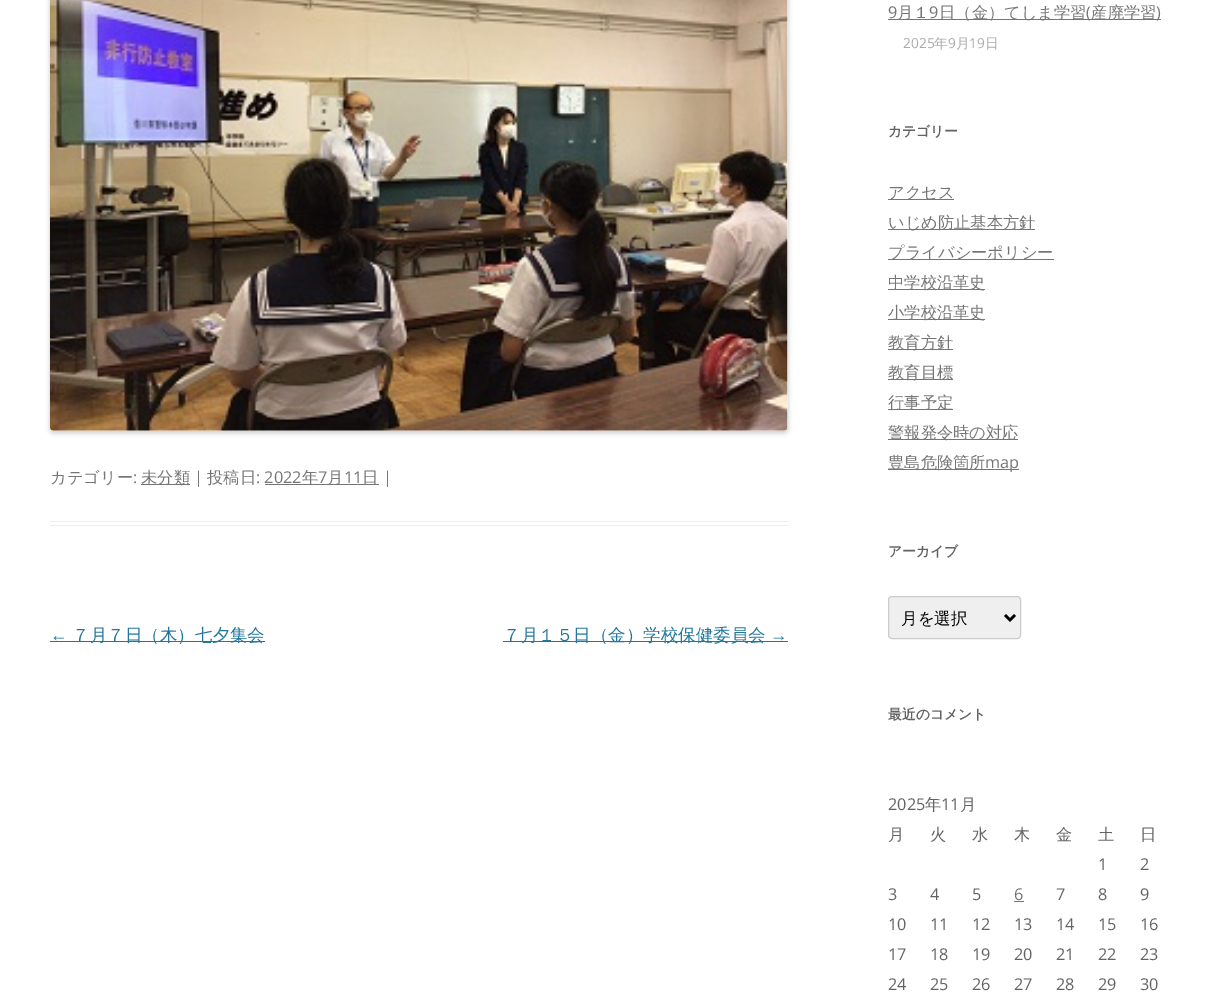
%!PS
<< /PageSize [1232 1004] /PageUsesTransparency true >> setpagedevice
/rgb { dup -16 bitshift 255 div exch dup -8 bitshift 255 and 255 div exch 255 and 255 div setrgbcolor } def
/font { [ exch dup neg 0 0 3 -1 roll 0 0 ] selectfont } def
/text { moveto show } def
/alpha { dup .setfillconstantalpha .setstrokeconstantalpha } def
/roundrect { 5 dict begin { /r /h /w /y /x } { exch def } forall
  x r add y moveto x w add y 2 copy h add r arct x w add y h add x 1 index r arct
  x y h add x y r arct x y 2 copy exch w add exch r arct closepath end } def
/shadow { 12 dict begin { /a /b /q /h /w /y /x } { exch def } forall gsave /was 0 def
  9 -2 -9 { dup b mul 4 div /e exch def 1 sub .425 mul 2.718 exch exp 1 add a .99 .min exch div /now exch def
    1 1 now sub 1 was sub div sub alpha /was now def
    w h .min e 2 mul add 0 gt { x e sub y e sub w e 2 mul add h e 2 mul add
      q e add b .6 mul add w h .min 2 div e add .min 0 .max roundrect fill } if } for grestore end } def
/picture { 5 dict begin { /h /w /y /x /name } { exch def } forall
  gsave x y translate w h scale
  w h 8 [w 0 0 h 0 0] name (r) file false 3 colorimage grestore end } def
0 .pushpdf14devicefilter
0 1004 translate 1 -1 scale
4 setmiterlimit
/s1 { /WenQuanYiZenHei-Medium 16.25 font 16#757575 rgb } def
/s2 { /OpenSans-Regular 16.25 font 16#757575 rgb } def
/s3 { /LiberationSans-Regular 17.5 font 16#21759B rgb } def
/s4 { /WenQuanYiZenHei-Medium 17.5 font 16#21759B rgb } def
/s5 { /OpenSans-Regular 13.75 font 16#AAAAAA rgb } def
/s6 { /WenQuanYiZenHei-Medium 13.75 font 16#AAAAAA rgb } def
/s7 { /WenQuanYiZenHei-Bold 13.75 font 16#636363 rgb } def
/s8 { /WenQuanYiZenHei-Medium 16.5 font 16#000000 rgb } def
/s9 { /OpenSans-Regular 16.25 font 16#636363 rgb } def
/s10 { /WenQuanYiZenHei-Medium 16.25 font 16#636363 rgb } def
16#FFFFFF rgb
0 0 1232 1004 rectfill
16#EDEDED rgb
50 521 738 1 rectfill
50 525 738 1 rectfill
16#000000 rgb
50 -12 738 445 4 2.5 0.2 shadow
(pic1.raw) 50 0 738 431 picture
s1
(カテゴリー) 50 483 text
s2
(:) 133 483 text
141 484 49 1 rectfill
s1
(未分類) 141 483 text
s2
(|) 194 483 text
s1
(投稿日) 207 483 text
s2
(: 2022) 256 483 text
265 484 114 1 rectfill
s1
(年) 302 483 text
s2
(7) 318 483 text
s1
(月) 327 483 text
s2
(11) 344 483 text
s1
(日) 362 483 text
s2
(|) 383 483 text
s3
(←) 50 641 text
50 641 215 1 rectfill
s4
(７月７日（木）七夕集会) 72 641 text
503 641 285 1 rectfill
(７月１５日（金）学校保健委員会) 503 641 text
s3
(→) 770 641 text
s2
(9) 888 18 text
888 19 273 1 rectfill
s1
(月１) 897 18 text
s2
(9) 929 18 text
s1
(日（金）てしま学習 産廃学習) 939 18 text
s2
(\() 1086 18 text
(\)) 1156 18 text
s5
(2025) 903 48 text
s6
(年) 934 48 text
s5
(9) 948 48 text
s6
(月) 956 48 text
s5
(19) 969 48 text
s6
(日) 985 48 text
s7
(カテゴリー) 888 136 text
16#757575 rgb
888 199 66 1 rectfill
s1
(アクセス) 888 198 text
888 229 147 1 rectfill
(いじめ防止基本方針) 888 228 text
888 259 166 1 rectfill
(プライバシーポリシー) 888 258 text
888 289 97 1 rectfill
(中学校沿革史) 888 288 text
888 319 97 1 rectfill
(小学校沿革史) 888 318 text
888 349 65 1 rectfill
(教育方針) 888 348 text
888 379 65 1 rectfill
(教育目標) 888 378 text
888 409 65 1 rectfill
(行事予定) 888 408 text
888 439 130 1 rectfill
(警報発令時の対応) 888 438 text
888 469 131 1 rectfill
(豊島危険箇所) 888 468 text
s2
(map) 985 468 text
s7
(アーカイブ) 888 556 text
16#EFEFEF rgb
888.5 596.5 132 42 3.5 roundrect gsave fill grestore
16#CCCCCC rgb
stroke
16#000000 rgb
2.5 setlinewidth
1005 615 moveto 1010 620 lineto 1015 615 lineto stroke
s8
(月を選択) 901 624 text
s7
(最近のコメント) 888 719 text
s9
(2025) 888 810 text
s10
(年) 925 810 text
s9
(11) 941 810 text
s10
(月) 960 810 text
(月) 888 840 text
(火) 930 840 text
(水) 972 840 text
(木) 1014 840 text
(金) 1056 840 text
(土) 1098 840 text
(日) 1140 840 text
s9
(1) 1098 870 text
(2) 1140 870 text
(3) 888 900 text
(4) 930 900 text
(5) 972 900 text
s2
(6) 1014 900 text
1014 901 10 1 rectfill
s9
(7) 1056 900 text
(8) 1098 900 text
(9) 1140 900 text
(10) 888 930 text
(11) 930 930 text
(12) 972 930 text
(13) 1014 930 text
(14) 1056 930 text
(15) 1098 930 text
(16) 1140 930 text
(17) 888 960 text
(18) 930 960 text
(19) 972 960 text
(20) 1014 960 text
(21) 1056 960 text
(22) 1098 960 text
(23) 1140 960 text
(24) 888 990 text
(25) 930 990 text
(26) 972 990 text
(27) 1014 990 text
(28) 1056 990 text
(29) 1098 990 text
(30) 1140 990 text
.poppdf14devicefilter showpage
